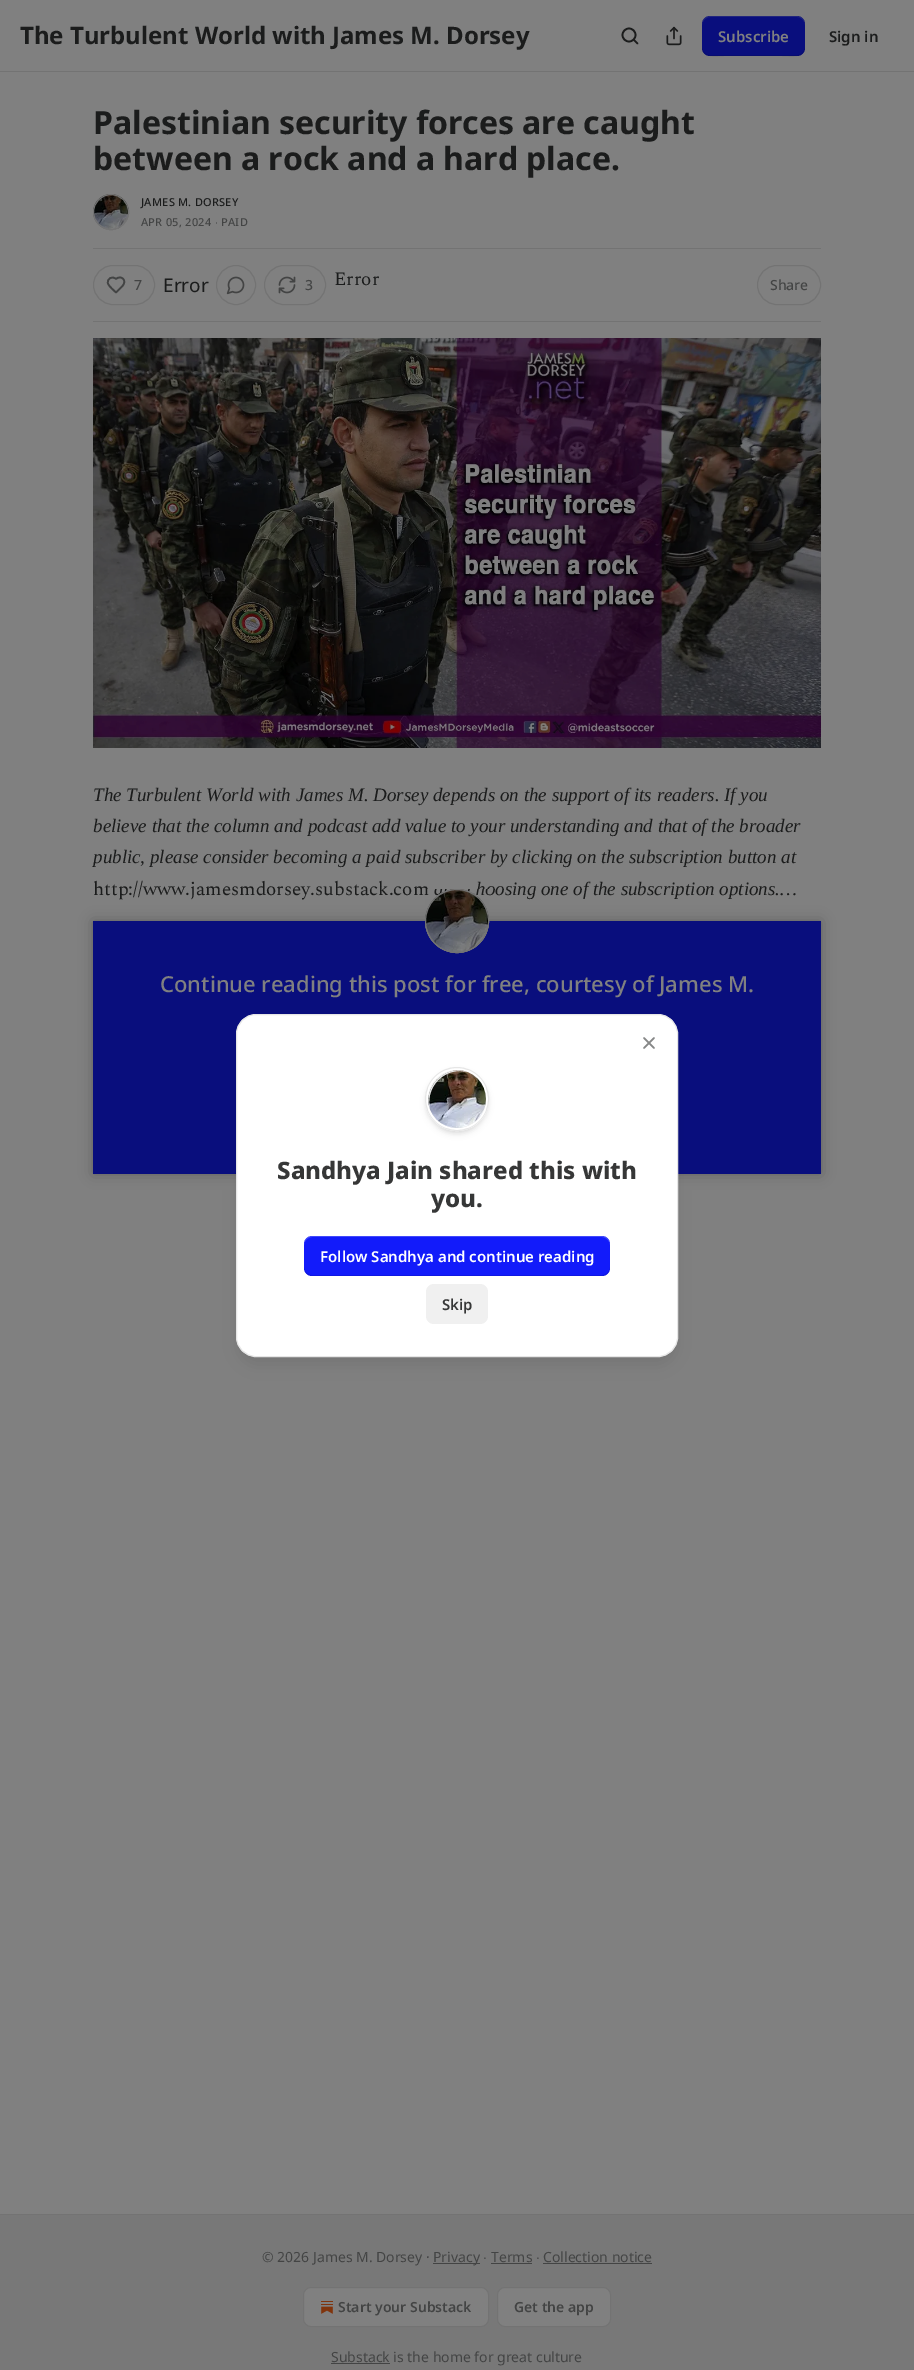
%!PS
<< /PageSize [914 2370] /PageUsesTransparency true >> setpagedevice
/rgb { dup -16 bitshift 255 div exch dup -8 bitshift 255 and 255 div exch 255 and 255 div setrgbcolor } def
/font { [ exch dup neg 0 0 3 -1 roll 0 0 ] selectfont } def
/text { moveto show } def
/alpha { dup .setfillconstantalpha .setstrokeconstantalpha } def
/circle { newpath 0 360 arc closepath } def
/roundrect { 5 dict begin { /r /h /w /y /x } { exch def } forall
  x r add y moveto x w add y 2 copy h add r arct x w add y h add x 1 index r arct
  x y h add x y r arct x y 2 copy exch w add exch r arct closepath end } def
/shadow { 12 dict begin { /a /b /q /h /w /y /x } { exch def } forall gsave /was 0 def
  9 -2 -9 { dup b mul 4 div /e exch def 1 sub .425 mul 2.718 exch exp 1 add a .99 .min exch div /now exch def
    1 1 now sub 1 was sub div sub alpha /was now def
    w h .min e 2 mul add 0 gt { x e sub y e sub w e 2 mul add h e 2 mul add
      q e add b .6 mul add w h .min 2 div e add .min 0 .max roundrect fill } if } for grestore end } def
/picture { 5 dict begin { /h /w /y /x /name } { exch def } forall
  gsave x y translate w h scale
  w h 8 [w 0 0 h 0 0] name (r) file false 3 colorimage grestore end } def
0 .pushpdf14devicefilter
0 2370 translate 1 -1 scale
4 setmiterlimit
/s1 { /NotoSans-Bold 24 font 16#1B1C1C rgb } def
/s2 { /NotoSans-SemiBold 15 font 16#808080 rgb } def
/s3 { /NotoSans-SemiBold 15 font 16#1B1C1C rgb } def
/s4 { /NotoSans-Bold 32 font 16#1B1C1C rgb } def
/s5 { /NotoSans-Medium 14 font 16#434444 rgb } def
/s6 { /NotoSans-Regular 19 font 16#1B1C1C rgb } def
/s7 { /Spectral-Regular 19 font 16#1B1C1C rgb } def
/s8 { /LiberationSerif-Italic 19 font 16#1B1C1C rgb } def
/s9 { /NotoSans-Medium 22 font 16#808080 rgb } def
/s10 { /NotoSans-Regular 14 font 16#434444 rgb } def
/s11 { /LiberationSans-Regular 14 font 16#434444 rgb } def
/s12 { /NotoSans-SemiBold 14 font 16#434444 rgb } def
/s13 { /NotoSans-ExtraBold 24 font 16#363737 rgb } def
/s14 { /NotoSans-SemiBold 15 font 16#FFFFFF rgb } def
/s15 { /NotoSans-SemiBold 15 font 16#363737 rgb } def
16#808080 rgb
0 0 914 2370 rectfill
16#737373 rgb
0 71 914 1 rectfill
s1
(The Turbulent World with James M. Dorsey) 20 44 text
1.7 setlinewidth
629 35 6.5 circle stroke
1 setlinecap
1 setlinejoin
637.5 43.5 moveto 634 40 lineto stroke
(pic1.raw) 666 26 16 20 picture
16#090E7D rgb
702 16 103 40 8 roundrect fill
0.1 alpha
16#000000 rgb
702 47 moveto 702 59 716 56 724 56 curveto 782 56 lineto 791 56 805 59 805 47 curveto 805 51 801 55 797 55 curveto 710 55 lineto 706 55 702 51 702 47 curveto closepath fill
0.2 alpha
16#808080 rgb
710 17 moveto 797 17 lineto 801 17 805 21 805 25 curveto 805 13 791 16 782 16 curveto 724 16 lineto 716 16 702 13 702 25 curveto 702 21 706 17 710 17 curveto closepath fill
1 alpha
s2
(Subscribe) 718 42 text
s3
(Sign in) 829 42 text
s4
(Palestinian security forces are caught) 93 134 text
(between a rock and a hard place.) 93 170 text
16#737373 rgb
1 setlinewidth
0 setlinecap
0 setlinejoin
111 212 17.5 circle stroke
(pic2.raw) 93 194 36 36 picture
111 212 17.5 circle stroke
/NotoSans-Medium 11 font
16#1B1C1C rgb
141 206 moveto 0.25 0 (JAMES M. DORSEY) ashow
16#434444 rgb
141 226 moveto 0.25 0 (APR 05, 2024) ashow
/LiberationSans-Regular 11 font
215 226 moveto 0.25 0 (∙) ashow
/NotoSans-Medium 11 font
221 226 moveto 0.25 0 (PAID) ashow
16#737373 rgb
93 248 728 1 rectfill
93 321 728 1 rectfill
93.5 265.5 61 39 19.5 roundrect stroke
16#434444 rgb
1.7 setlinewidth
1 setlinecap
1 setlinejoin
122 286.5 moveto 128 280.5 121 274.5 116 279 curveto 112.5 275.5 106.5 278.5 108 283.5 curveto 109 286.5 114 290.5 116 292.5 curveto closepath stroke
s5
(7) 134 290 text
s6
(Error) 163 292 text
16#737373 rgb
1 setlinewidth
0 setlinecap
0 setlinejoin
236 285 19.5 circle stroke
(pic3.raw) 226 276 19 19 picture
264.5 265.5 61 39 19.5 roundrect stroke
(pic4.raw) 278 276 18 18 picture
s5
(3) 305 290 text
s7
(Error) 334 285 text
16#737373 rgb
757.5 265.5 63 39 19.5 roundrect stroke
s5
(Share) 770 290 text
(pic5.raw) 93 338 728 410 picture
s8
(The Turbulent World with James M. Dorsey depends on the support of its readers. If you) 93 801 text
(believe that the column and podcast add value to your understanding and that of the broader) 93 832 text
(public, please consider becoming a paid subscriber by clicking on the subscription button at) 93 863 text
s7
(http://www.jamesmdorsey.substack.com) 93 895 text
s8
(hoosing one of the subscription options.…) 476 895 text
16#090E7D rgb
93 921 728 253 rectfill
gsave
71 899 moveto 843 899 lineto 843 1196 lineto 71 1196 lineto closepath 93 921 moveto 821 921 lineto 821 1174 lineto 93 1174 lineto closepath eoclip newpath
16#000000 rgb
93 921 728 253 0 7 0.25 shadow
grestore
16#737373 rgb
457 921 31.5 circle stroke
(pic6.raw) 425 889 64 64 picture
457 921 31.5 circle stroke
s9
(Continue reading this post for free, courtesy of James M.) 160 992 text
16#787878 rgb
0 2215 914 155 rectfill
16#737373 rgb
0 2214 914 1 rectfill
s10
(© 2026 James M. Dorsey ·) 262 2262 text
433 2263 47 1 rectfill
(Privacy) 433 2262 text
s11
(∙) 483 2262 text
s10
(Terms) 491 2262 text
491 2263 41 1 rectfill
s11
(∙) 536 2262 text
s10
(Collection notice) 543 2262 text
543 2263 109 1 rectfill
16#808080 rgb
303.5 2287.5 185 39 7.5 roundrect gsave fill grestore
16#737373 rgb
stroke
(pic7.raw) 321 2301 12 13 picture
s12
(Start your Substack) 338 2312 text
16#808080 rgb
497.5 2287.5 113 39 7.5 roundrect gsave fill grestore
16#737373 rgb
stroke
s12
(Get the app) 514 2312 text
331 2363 59 1 rectfill
s10
(Substack is the home for great culture) 331 2362 text
16#000000 rgb
239 1027 436 337 17 7.5 0.1 shadow
16#FFFFFF rgb
236.5 1014.5 441 342 19.5 roundrect gsave fill grestore
16#E6E6E6 rgb
stroke
16#868787 rgb
1.7 setlinewidth
1 setlinecap
1 setlinejoin
654 1038 moveto 644 1048 lineto 644 1038 moveto 654 1048 lineto stroke
16#000000 rgb
426 1070 62 62 31 2 0.06 shadow
426 1072 62 62 31 3 0.1 shadow
16#F0F0F0 rgb
457 1099 30.5 circle gsave fill grestore
16#FFFFFF rgb
3 setlinewidth
0 setlinecap
0 setlinejoin
stroke
16#E6E6E6 rgb
1 setlinewidth
457 1099 31.5 circle stroke
gsave
428 1070 58 58 29 roundrect clip newpath
16#F0F0F0 rgb
460 1102 32 circle fill
grestore
(pic8.raw) 428 1070 58 58 picture
460 1071 moveto 440 1071 425.5 1090 430 1109 curveto 422 1087.5 445.5 1064 467 1072 curveto 465 1071.5 462.5 1071 460 1071 curveto closepath fill
s13
(Sandhya Jain shared this with) 277 1179 text
(you.) 431 1207 text
16#121BFA rgb
304 1236 306 40 8 roundrect fill
0.1 alpha
16#000000 rgb
304 1267 moveto 304 1272 307 1276 312 1276 curveto 604 1276 lineto 608 1275 610 1271 610 1267 curveto 610 1271 606 1275 602 1275 curveto 312 1275 lineto 308 1275 304 1271 304 1267 curveto closepath fill
0.2 alpha
16#FFFFFF rgb
312 1237 moveto 602 1237 lineto 606 1237 610 1241 610 1245 curveto 610 1240 607 1236 602 1236 curveto 310 1236 lineto 306 1237 304 1241 304 1245 curveto 304 1241 308 1237 312 1237 curveto closepath fill
1 alpha
s14
(Follow Sandhya and continue reading) 320 1262 text
16#F0F0F0 rgb
426 1284 62 40 8 roundrect fill
s15
(Skip) 442 1310 text
.poppdf14devicefilter showpage
